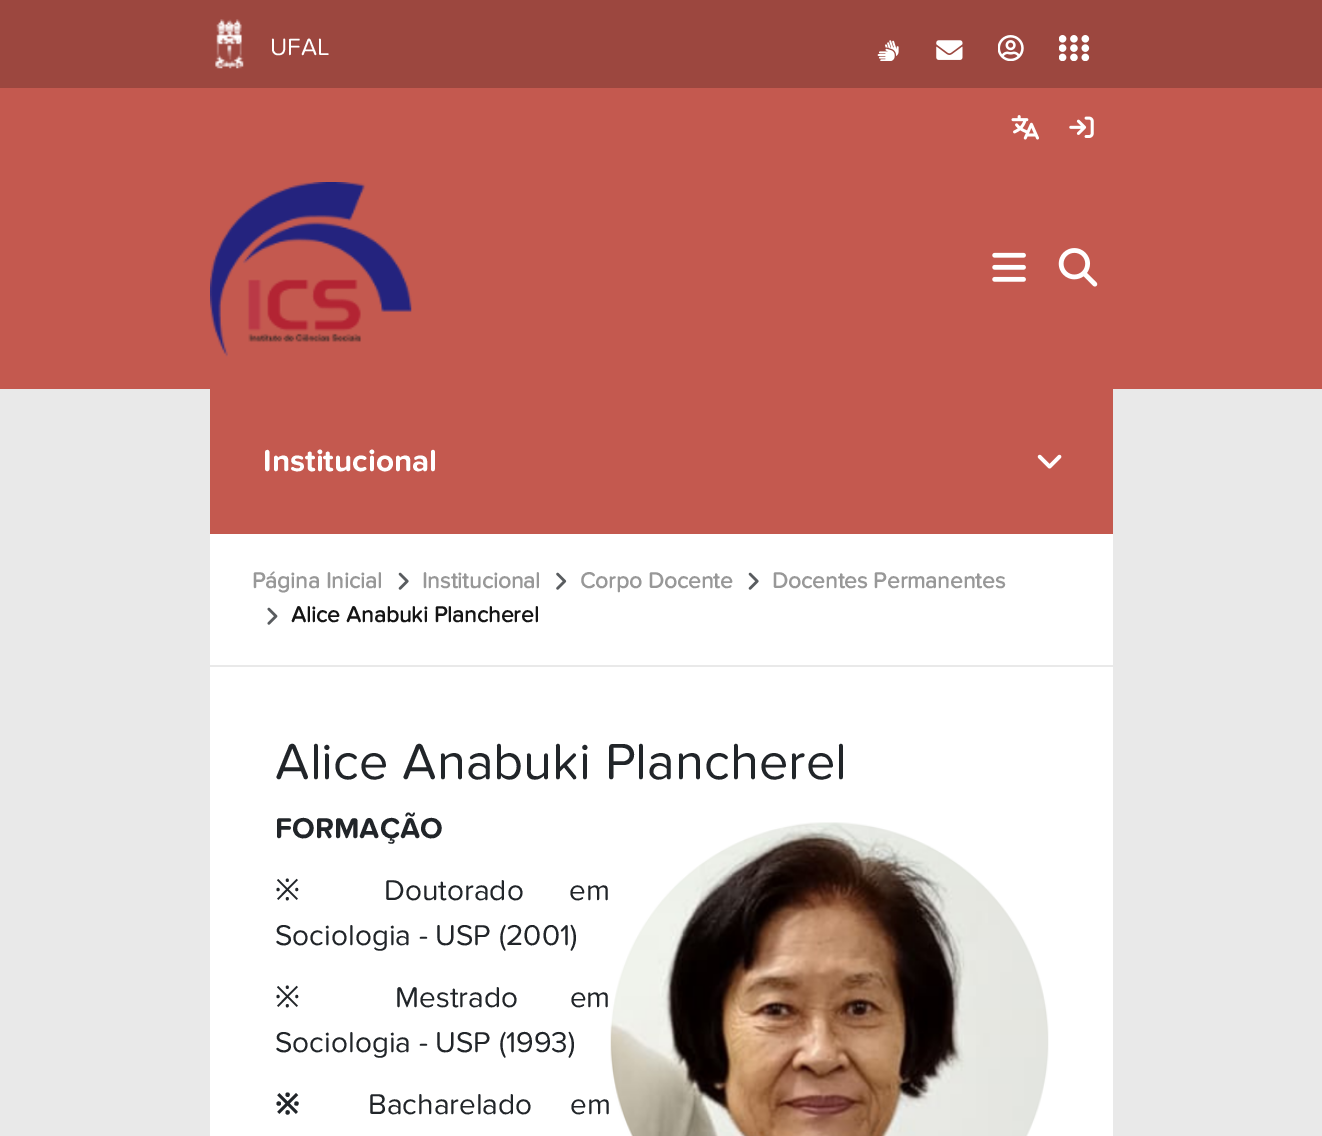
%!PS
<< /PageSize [1322 1136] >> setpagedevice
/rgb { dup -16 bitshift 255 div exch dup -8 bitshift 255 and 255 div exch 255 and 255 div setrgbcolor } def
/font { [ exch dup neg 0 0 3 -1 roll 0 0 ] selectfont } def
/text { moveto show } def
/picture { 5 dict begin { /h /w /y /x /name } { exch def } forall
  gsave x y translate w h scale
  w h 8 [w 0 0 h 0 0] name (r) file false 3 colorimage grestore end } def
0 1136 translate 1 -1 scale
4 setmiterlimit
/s1 { /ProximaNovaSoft-Regular 24.5 font 16#FFFFFF rgb } def
/s2 { /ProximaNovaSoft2-Bold 31.5 font 16#FFFFFF rgb } def
/s3 { /ProximaNovaSoft-Bold 22.75 font 16#989898 rgb } def
/s4 { /ProximaNovaSoft-Bold 22.75 font 16#151515 rgb } def
/s5 { /ProximaNovaSoft-Regular 52.5 font 16#212529 rgb } def
/s6 { /ProximaNovaSoft2-Bold 29.75 font 16#212529 rgb } def
/s7 { /NotoSans-Regular 29.75 font 16#212529 rgb } def
/s8 { /ProximaNovaSoft-Regular 29.75 font 16#212529 rgb } def
/s9 { /NotoSans-Bold 29.75 font 16#212529 rgb } def
16#E9E9E9 rgb
0 0 1322 1136 rectfill
16#9C473F rgb
0 0 1322 88 rectfill
(pic1.raw) 215 19 29 50 picture
s1
(UFAL) 270 55 text
(pic2.raw) 877 40 22 21 picture
(pic3.raw) 936 40 27 20 picture
(pic4.raw) 998 35 26 26 picture
(pic5.raw) 1059 35 31 26 picture
16#C4594F rgb
0 88 1322 301 rectfill
(pic6.raw) 1011 115 28 25 picture
(pic7.raw) 1069 116 25 22 picture
(pic8.raw) 210 182 202 175 picture
(pic9.raw) 992 252 34 30 picture
(pic10.raw) 1058 248 40 39 picture
16#FFFFFF rgb
210 534 903 602 rectfill
16#C4594F rgb
210 389 903 145 rectfill
s2
(Institucional) 263 471 text
(pic11.raw) 1037 454 25 15 picture
16#E9E9E9 rgb
210 665 903 2 rectfill
s3
(Página Inicial) 252 588 text
(pic12.raw) 398 572 11 18 picture
(Institucional) 422 588 text
(pic13.raw) 556 572 11 18 picture
(Corpo Docente) 580 588 text
(pic12.raw) 748 572 11 18 picture
(Docentes Permanentes) 772 588 text
(pic14.raw) 267 607 11 18 picture
s4
(Alice Anabuki Plancherel) 291 622 text
s5
(Alice Anabuki Plancherel) 275 779 text
s6
(FORMAÇÃO) 275 838 text
(pic15.raw) 610 822 439 314 picture
s7
(※) 275 900 text
/ProximaNovaSoft-Regular 29.75 font
384 900 moveto 38 0 32 (Doutorado em) widthshow
(Sociologia - USP \(2001\)) 275 945 text
s7
(※) 275 1007 text
/ProximaNovaSoft-Regular 29.75 font
395 1007 moveto 44 0 32 (Mestrado em) widthshow
(Sociologia - USP \(1993\)) 275 1052 text
s9
(※) 275 1114 text
/ProximaNovaSoft-Regular 29.75 font
368 1114 moveto 30 0 32 (Bacharelado em) widthshow
showpage
